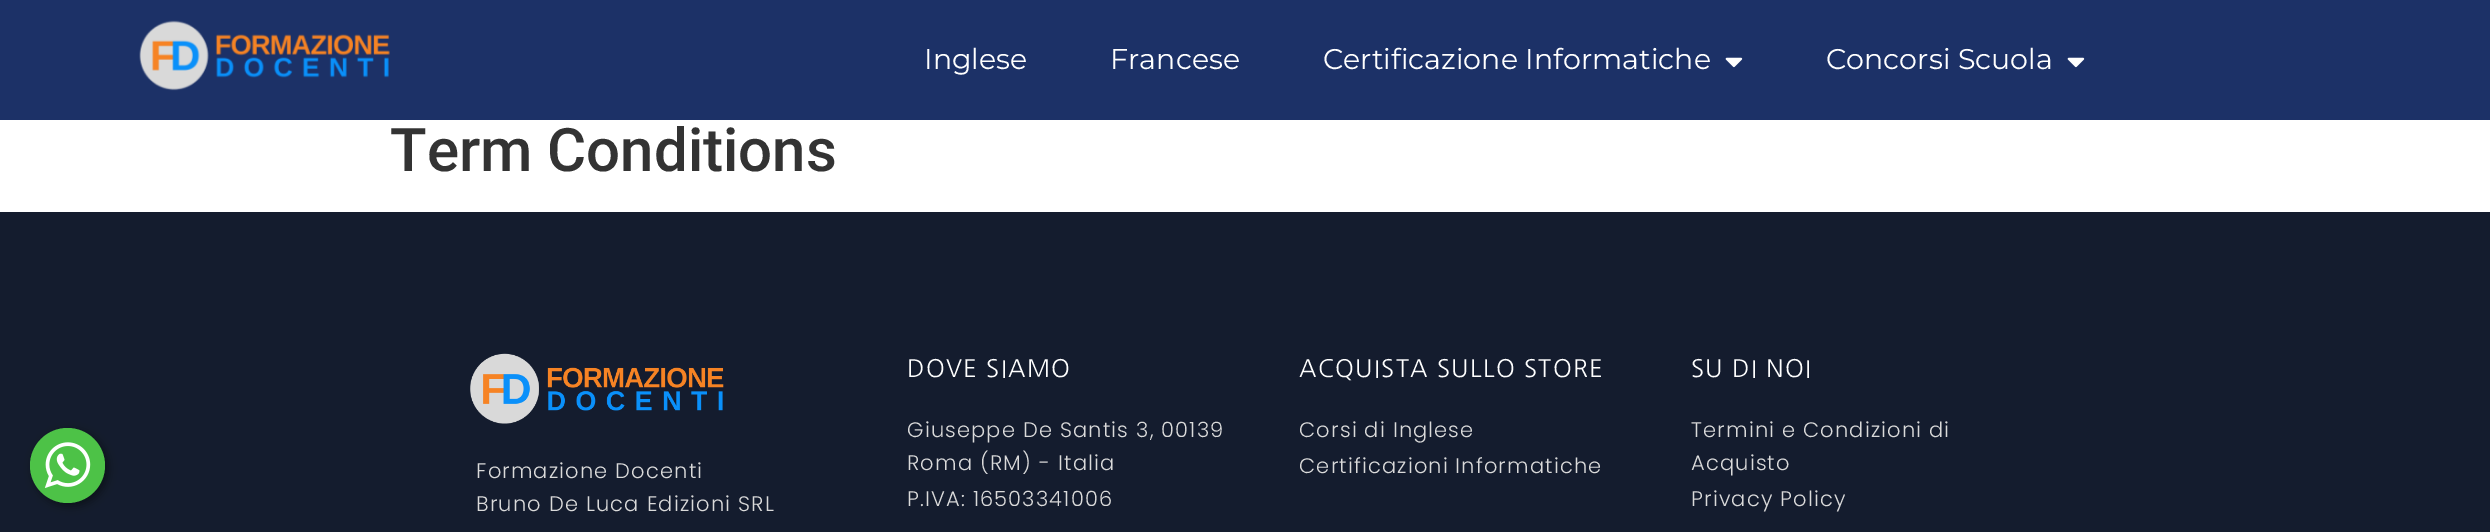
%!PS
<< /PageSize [2490 532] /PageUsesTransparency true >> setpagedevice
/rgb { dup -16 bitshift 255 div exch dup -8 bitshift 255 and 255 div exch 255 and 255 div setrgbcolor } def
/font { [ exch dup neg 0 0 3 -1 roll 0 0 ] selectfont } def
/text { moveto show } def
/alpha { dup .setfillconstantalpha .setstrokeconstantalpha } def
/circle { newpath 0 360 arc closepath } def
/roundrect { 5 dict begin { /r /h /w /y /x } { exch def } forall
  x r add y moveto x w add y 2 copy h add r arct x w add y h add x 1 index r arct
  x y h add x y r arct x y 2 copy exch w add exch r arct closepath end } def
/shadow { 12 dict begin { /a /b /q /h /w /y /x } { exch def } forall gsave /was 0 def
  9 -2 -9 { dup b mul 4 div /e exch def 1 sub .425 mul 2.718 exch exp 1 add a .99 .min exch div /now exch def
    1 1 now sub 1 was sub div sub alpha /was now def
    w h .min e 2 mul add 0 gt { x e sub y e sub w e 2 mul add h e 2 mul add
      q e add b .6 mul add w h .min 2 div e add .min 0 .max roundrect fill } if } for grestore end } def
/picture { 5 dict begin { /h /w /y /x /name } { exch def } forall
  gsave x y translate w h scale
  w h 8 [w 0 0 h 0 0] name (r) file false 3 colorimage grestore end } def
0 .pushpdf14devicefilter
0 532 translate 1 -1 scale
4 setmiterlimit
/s1 { /Montserrat-Regular 28.5 font 16#FFFFFF rgb } def
/s2 { /Roboto-Medium 60 font 16#333333 rgb } def
16#FFFFFF rgb
0 0 2490 532 rectfill
16#1C3167 rgb
0 0 2490 120 rectfill
(pic1.raw) 139 20 251 71 picture
s1
(Inglese) 924 69 text
(Francese) 1110 69 text
(Certificazione Informatiche) 1323 69 text
(pic2.raw) 1725 57 18 11 picture
(Concorsi Scuola) 1826 69 text
(pic2.raw) 2067 57 18 11 picture
s2
(Term Conditions) 390 171 text
16#141C2E rgb
0 212 2490 320 rectfill
16#000000 rgb
33 431 75 75 37.5 4.5 0.4 shadow
16#4DC247 rgb
67.5 465.5 37.5 circle fill
(pic3.raw) 44 442 47 46 picture
(pic4.raw) 470 353 254 71 picture
/Poppins-Light 21 font
16#DADADA rgb
476 478 moveto 1.15 0 (Formazione Docenti) ashow
476 511 moveto 1.15 0 (Bruno De Luca Edizioni SRL) ashow
/NanumGothic-Regular 24 font
16#FFFFFF rgb
907 377 moveto 1.3 0 (DOVE SIAMO) ashow
/Poppins-Light 21 font
16#DADADA rgb
907 437 moveto 1.15 0 (Giuseppe De Santis 3, 00139) ashow
907 470 moveto 1.15 0 (Roma \(RM\) - Italia) ashow
907 506 moveto 1.15 0 (P.IVA: 16503341006) ashow
/NanumGothic-Regular 24 font
16#FFFFFF rgb
1299 377 moveto 1.3 0 (ACQUISTA SULLO STORE) ashow
/Poppins-Light 21 font
16#DADADA rgb
1299 437 moveto 1.15 0 (Corsi di Inglese) ashow
1299 473 moveto 1.15 0 (Certificazioni Informatiche) ashow
/NanumGothic-Regular 24 font
16#FFFFFF rgb
1691 377 moveto 1.3 0 (SU DI NOI) ashow
/Poppins-Light 21 font
16#DADADA rgb
1691 437 moveto 1.15 0 (Termini e Condizioni di) ashow
1691 470 moveto 1.15 0 (Acquisto) ashow
1691 506 moveto 1.15 0 (Privacy Policy) ashow
.poppdf14devicefilter showpage
